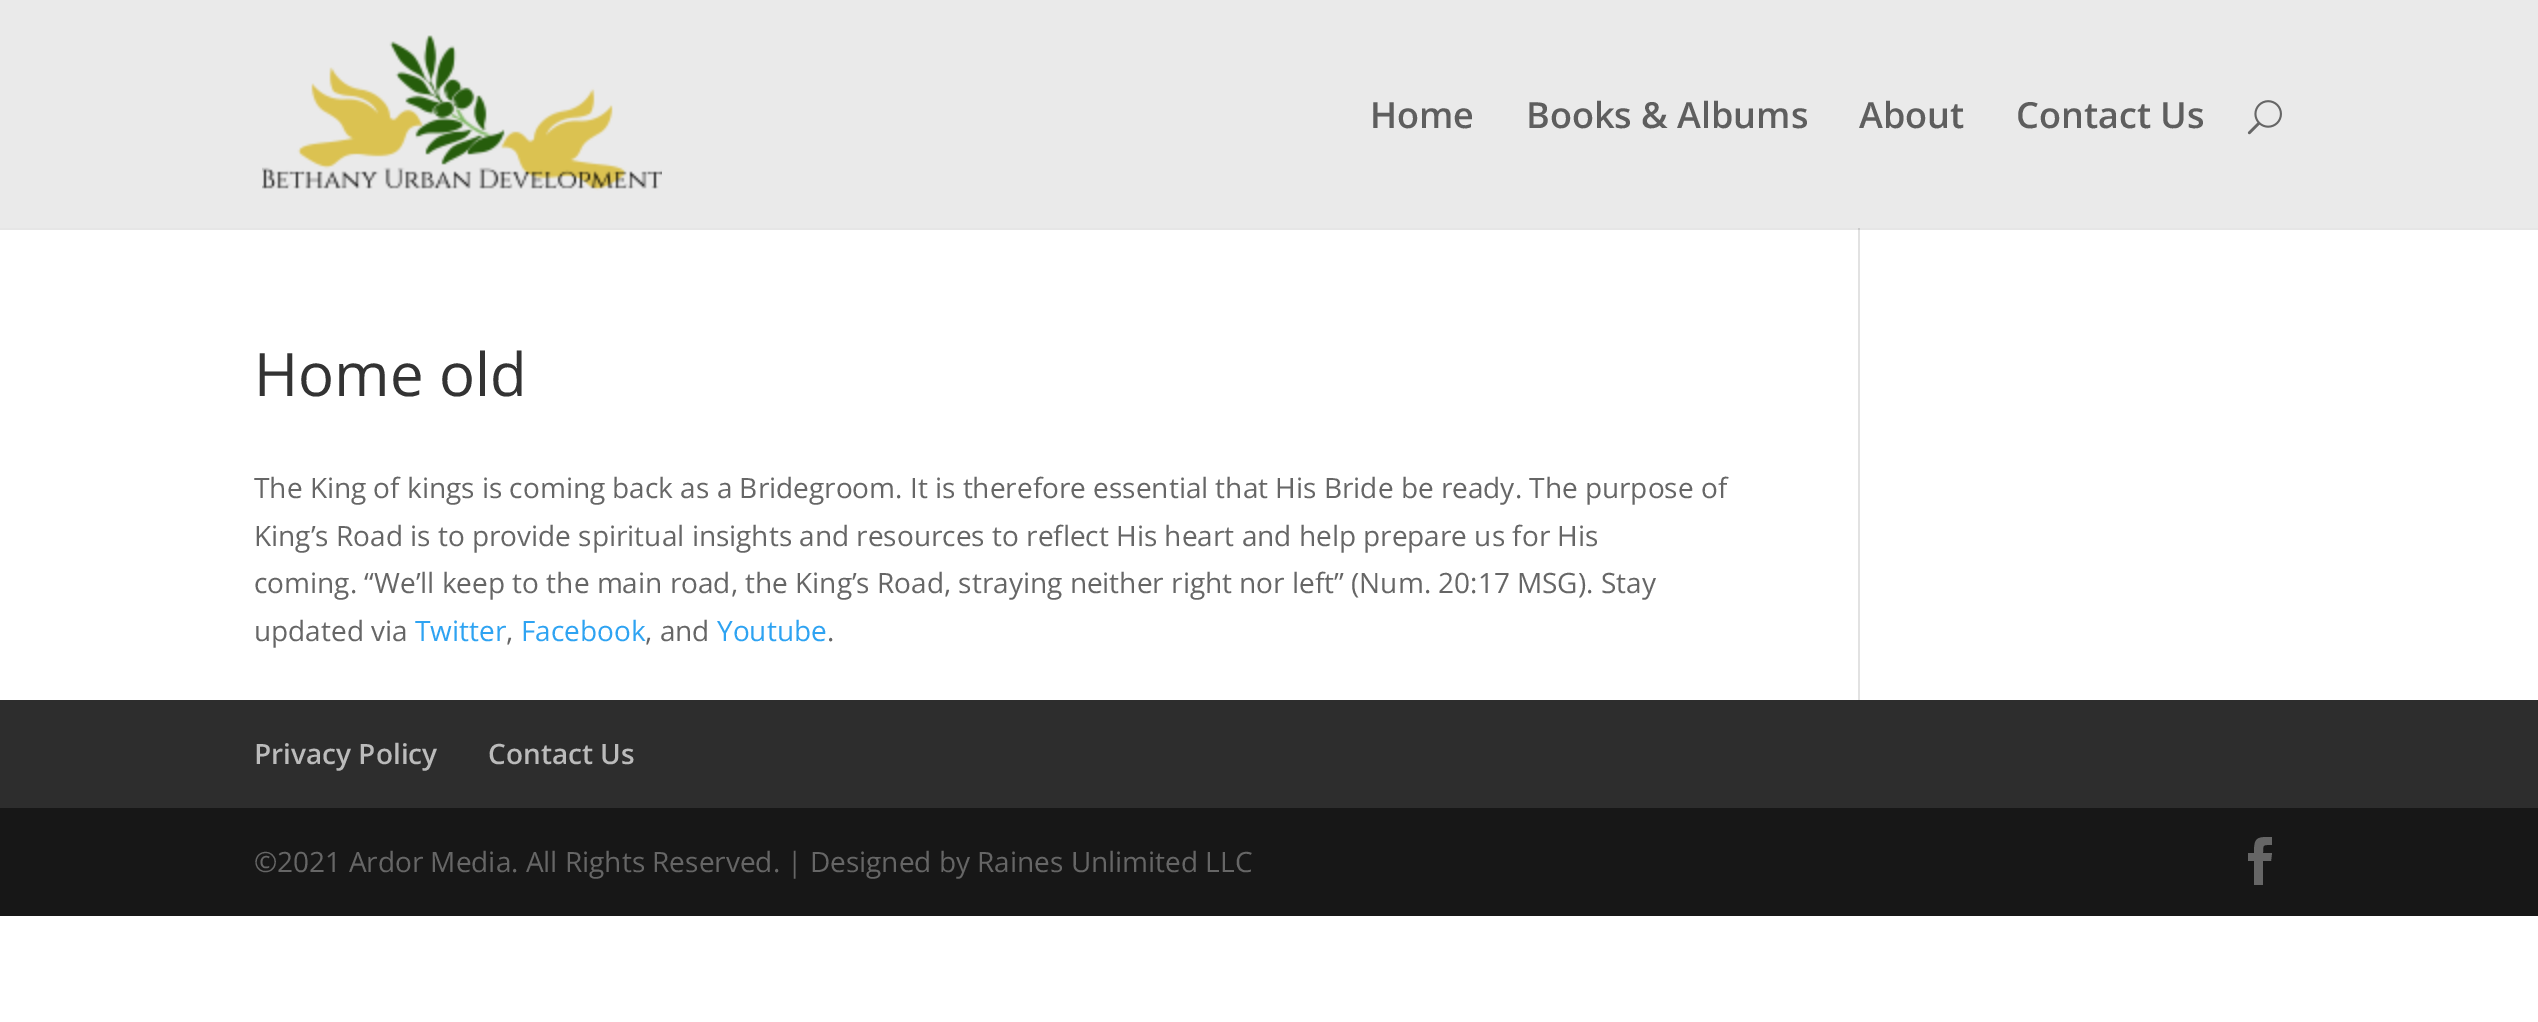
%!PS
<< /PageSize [2538 1022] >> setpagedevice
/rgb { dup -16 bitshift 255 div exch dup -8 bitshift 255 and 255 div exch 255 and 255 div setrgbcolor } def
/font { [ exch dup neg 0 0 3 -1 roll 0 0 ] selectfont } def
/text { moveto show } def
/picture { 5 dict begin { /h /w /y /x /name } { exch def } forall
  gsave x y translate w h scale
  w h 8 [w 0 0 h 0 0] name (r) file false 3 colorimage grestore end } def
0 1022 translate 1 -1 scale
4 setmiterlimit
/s1 { /OpenSans-SemiBold 36 font 16#5E5E5E rgb } def
/s2 { /OpenSans-Regular 60 font 16#333333 rgb } def
/s3 { /OpenSans-Regular 28 font 16#666666 rgb } def
/s4 { /OpenSans-Regular 28 font 16#2EA3F2 rgb } def
/s5 { /OpenSans-SemiBold 28 font 16#BBBBBB rgb } def
16#FFFFFF rgb
0 0 2538 1022 rectfill
16#E6E6E6 rgb
0 228 2538 2 rectfill
16#EAEAEA rgb
0 0 2538 228 rectfill
(pic1.raw) 262 35 400 156 picture
s1
(Home) 1370 128 text
(Books & Albums) 1526 128 text
(About) 1859 128 text
(Contact Us) 2016 128 text
(pic2.raw) 2247 100 35 35 picture
s2
(Home old) 254 396 text
s3
(The King of kings is coming back as a Bridegroom. It is therefore essential that His Bride be ready. The purpose of) 254 498 text
(King’s Road is to provide spiritual insights and resources to reflect His heart and help prepare us for His) 254 546 text
(coming. “We’ll keep to the main road, the King’s Road, straying neither right nor left” \(Num. 20:17 MSG\). Stay) 254 593 text
(updated via) 254 641 text
s4
(Twitter) 415 641 text
s3
(,) 506 641 text
s4
(Facebook) 521 641 text
s3
(, and) 645 641 text
s4
(Youtube) 717 641 text
s3
(.) 827 641 text
16#E2E2E2 rgb
1858 228 2 472 rectfill
16#CBCBCB rgb
1858 228 2 2 rectfill
16#2D2D2D rgb
0 700 2538 108 rectfill
s5
(Privacy Policy) 254 764 text
(Contact Us) 488 764 text
16#171717 rgb
0 808 2538 108 rectfill
s3
(©2021 Ardor Media. All Rights Reserved. | Designed by Raines Unlimited LLC) 254 872 text
2254 885 moveto 2263 885 lineto 2263 861 lineto 2271 861 lineto 2272 853 lineto 2263 853 lineto 2263 844 2263 845 2272 845 curveto 2272 837 lineto 2257 837 2254 837 2254 853 curveto 2248 853 lineto 2248 861 lineto 2254 861 lineto closepath fill
showpage
